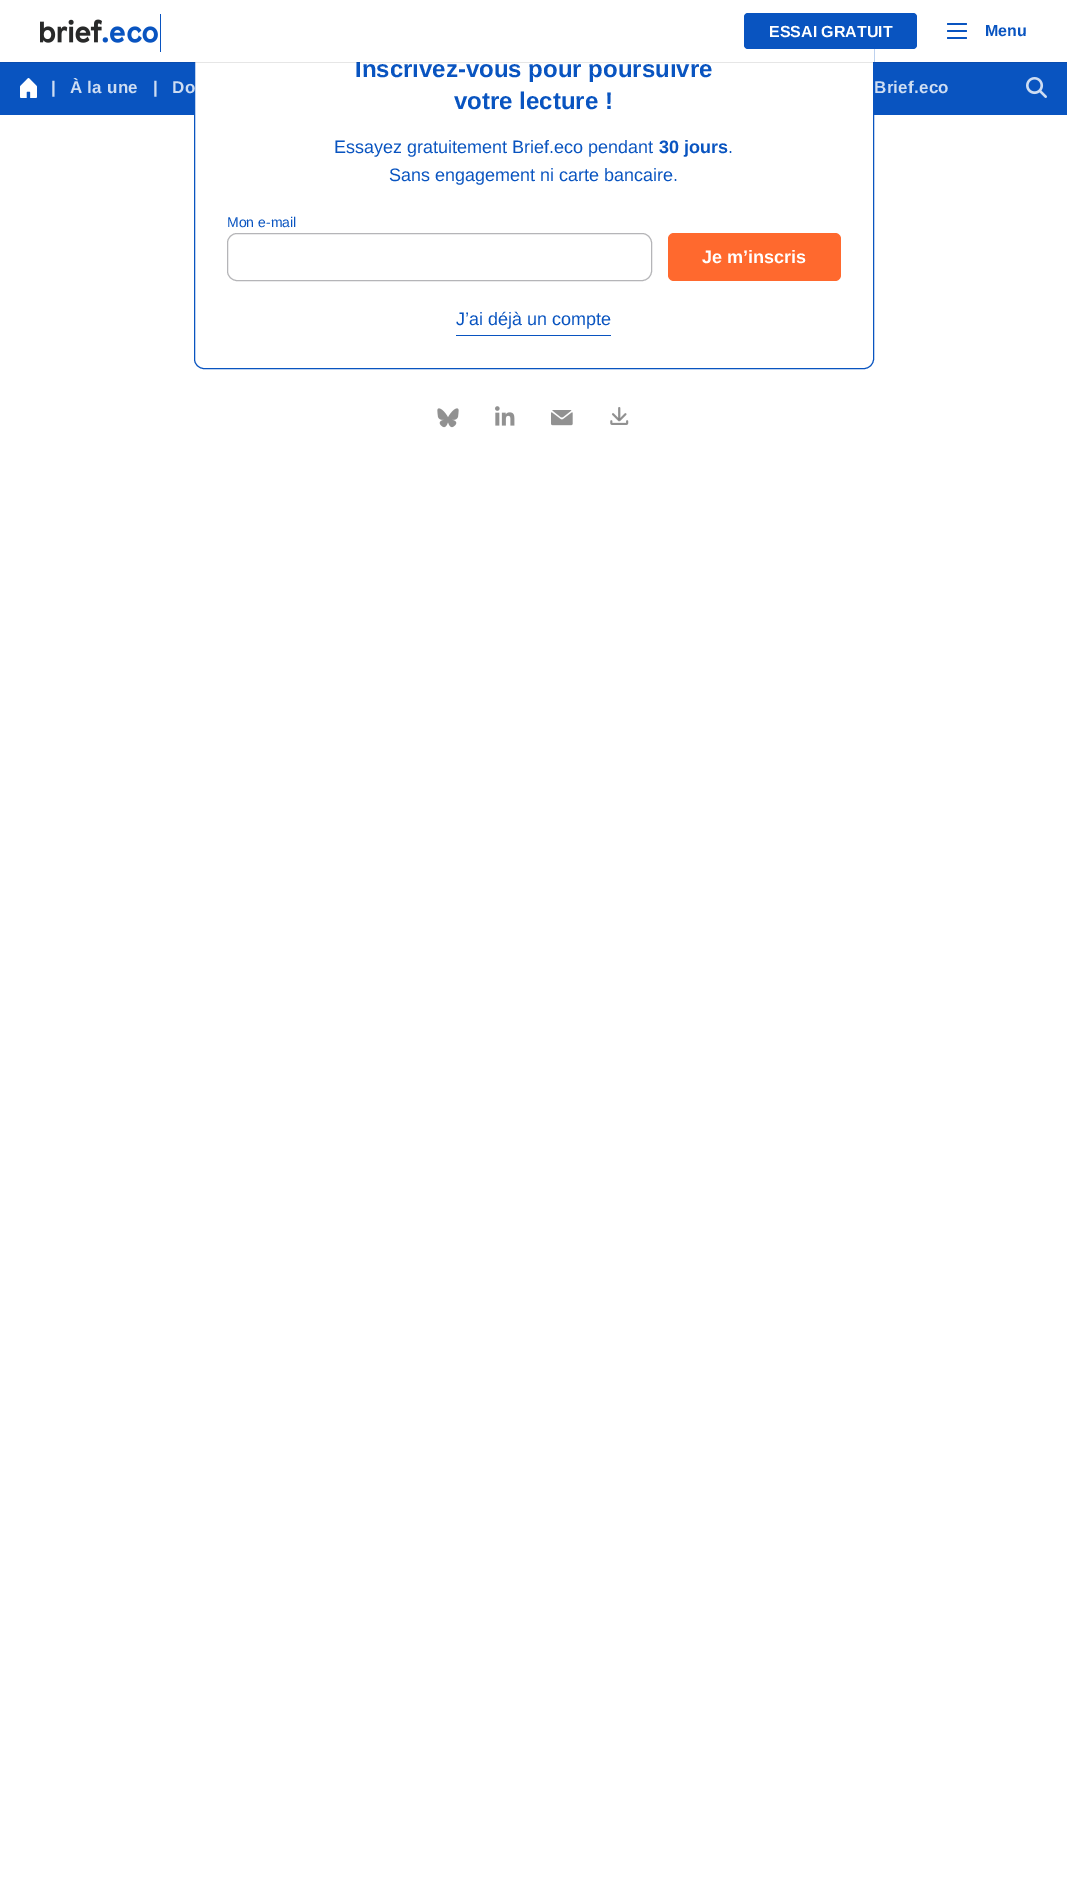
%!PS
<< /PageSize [1067 1880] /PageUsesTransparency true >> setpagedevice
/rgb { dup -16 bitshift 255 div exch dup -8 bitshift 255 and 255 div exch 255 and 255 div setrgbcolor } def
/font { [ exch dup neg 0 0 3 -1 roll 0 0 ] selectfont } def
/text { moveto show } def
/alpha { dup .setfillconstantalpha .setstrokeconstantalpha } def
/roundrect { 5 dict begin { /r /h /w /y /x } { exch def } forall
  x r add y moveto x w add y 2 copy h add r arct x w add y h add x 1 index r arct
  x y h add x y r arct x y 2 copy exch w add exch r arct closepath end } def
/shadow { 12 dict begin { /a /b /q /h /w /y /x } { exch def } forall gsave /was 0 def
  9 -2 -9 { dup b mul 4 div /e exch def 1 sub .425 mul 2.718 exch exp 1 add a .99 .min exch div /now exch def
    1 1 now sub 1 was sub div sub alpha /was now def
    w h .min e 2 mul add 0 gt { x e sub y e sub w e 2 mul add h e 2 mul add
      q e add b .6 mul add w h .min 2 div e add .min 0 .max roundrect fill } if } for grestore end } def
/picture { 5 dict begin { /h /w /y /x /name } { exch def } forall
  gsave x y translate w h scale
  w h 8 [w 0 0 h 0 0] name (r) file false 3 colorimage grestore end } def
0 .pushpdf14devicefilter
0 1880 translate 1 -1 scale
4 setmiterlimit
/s1 { /LiberationSans-Bold 24 font 16#0954C0 rgb } def
/s2 { /LiberationSans-Bold 16 font 16#FFFFFF rgb } def
/s3 { /LiberationSans-Bold 16 font 16#0954C0 rgb } def
/s4 { /LiberationSans-Regular 18 font 16#0954C0 rgb } def
/s5 { /LiberationSans-Bold 18 font 16#0954C0 rgb } def
/s6 { /LiberationSans-Regular 14 font 16#0954C0 rgb } def
/s7 { /LiberationSans-Bold 18 font 16#FFFFFF rgb } def
16#FFFFFF rgb
0 0 1067 1880 rectfill
16#0954C0 rgb
0 62 1067 53 rectfill
16#FFFFFF rgb
194.5 20.5 679 348 9.5 roundrect gsave fill grestore
16#0954C0 rgb
stroke
s1
(Inscrivez-vous pour poursuivre) 355 77 text
16#FFFFFF rgb
194 20 680 42 rectfill
gsave
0 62 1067 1 rectclip
16#000000 rgb
0 1 1067 62 0 0.5 0.11 shadow
grestore
(pic1.raw) 40 14 121 38 picture
16#0954C0 rgb
744 13 173 36 4 roundrect fill
s2
(ESSAI GRATUIT) 769 37 text
16#0954C0 rgb
947 23 20 2 1 roundrect fill
947 30 20 2 1 roundrect fill
947 37 20 2 1 roundrect fill
(Menu) 985 36 text
(pic2.raw) 20 78 17 20 picture
/LiberationSans-Bold 17 font
16#CEDDF2 rgb
51 93 moveto 0.25 0 (|) ashow
70 93 moveto 0.25 0 (À la une) ashow
153 93 moveto 0.25 0 (|) ashow
172 93 moveto 0.25 0 (Do) ashow
874 93 moveto 0.25 0 (Brief.eco) ashow
(pic3.raw) 1026 77 21 21 picture
s1
(votre lecture !) 454 109 text
s4
(Essayez gratuitement Brief.eco pendant) 334 153 text
s5
(30 jours) 659 153 text
s4
(.) 728 153 text
(Sans engagement ni carte bancaire.) 389 181 text
s6
(Mon e-mail) 227 227 text
16#B5B5B8 rgb
227.5 233.5 424 47 9.5 roundrect stroke
16#FF692E rgb
668 233 173 48 6 roundrect fill
s7
(Je m’inscris) 702 263 text
16#0954C0 rgb
456 335 155 1 rectfill
s4
(J’ai déjà un compte) 456 325 text
(pic4.raw) 437 408 22 20 picture
(pic5.raw) 495 406 20 20 picture
(pic6.raw) 551 410 22 16 picture
(pic7.raw) 610 407 19 18 picture
.poppdf14devicefilter showpage
